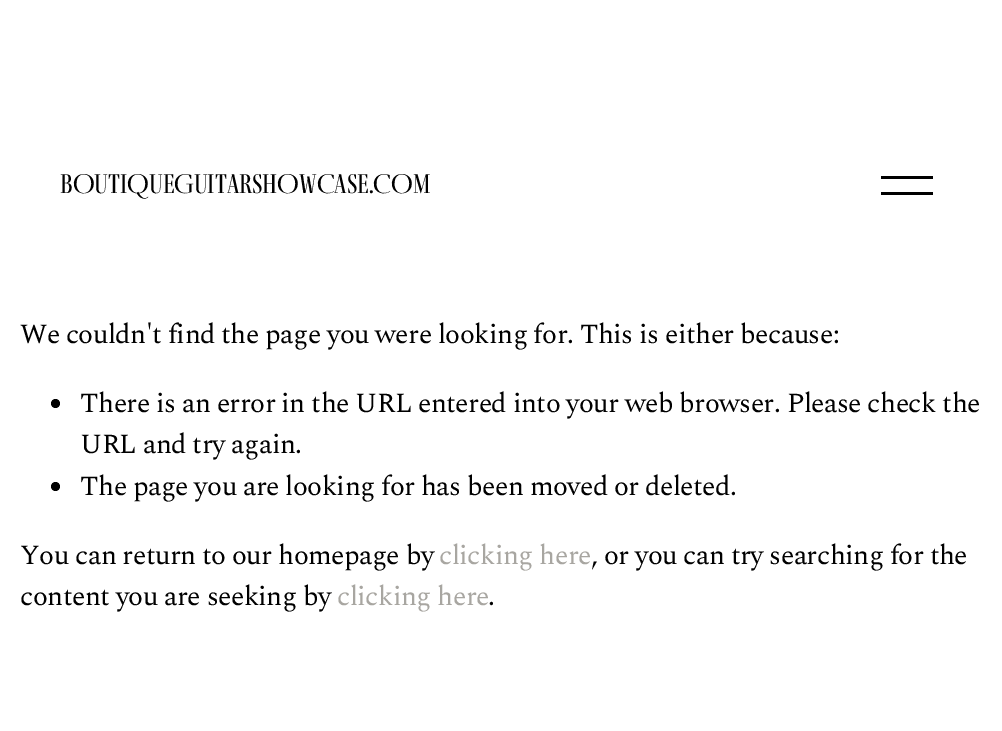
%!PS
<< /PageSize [1002 731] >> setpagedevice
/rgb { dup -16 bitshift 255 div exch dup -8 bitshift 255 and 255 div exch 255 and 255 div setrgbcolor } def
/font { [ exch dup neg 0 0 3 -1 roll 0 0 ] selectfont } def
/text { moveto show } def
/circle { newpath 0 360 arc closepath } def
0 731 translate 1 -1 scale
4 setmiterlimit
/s1 { /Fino-Regular 27.6 font 16#000000 rgb } def
16#FFFFFF rgb
0 0 1002 731 rectfill
s1
(BOUTIQUEGUITARSHOWCASE.COM) 60 193 text
881 176 52 3 rectfill
881 192 52 3 rectfill
/Spectral-Regular 27.6 font
20 343 moveto -0.55 0 (We couldn't find the page you were looking for. This is either because:) ashow
55.5 403.5 4.5 circle fill
80 412 moveto -0.55 0 (There is an error in the URL entered into your web browser. Please check the) ashow
80 453 moveto -0.55 0 (URL and try again.) ashow
55.5 486.5 4.5 circle fill
80 495 moveto -0.55 0 (The page you are looking for has been moved or deleted.) ashow
20 564 moveto -0.55 0 (You can return to our homepage by) ashow
16#A8A6A1 rgb
439 564 moveto -0.55 0 (clicking here) ashow
16#000000 rgb
591 564 moveto -0.55 0 (, or you can try searching for the) ashow
20 605 moveto -0.55 0 (content you are seeking by) ashow
16#A8A6A1 rgb
337 605 moveto -0.55 0 (clicking here) ashow
16#000000 rgb
488 605 moveto -0.55 0 (.) ashow
showpage
